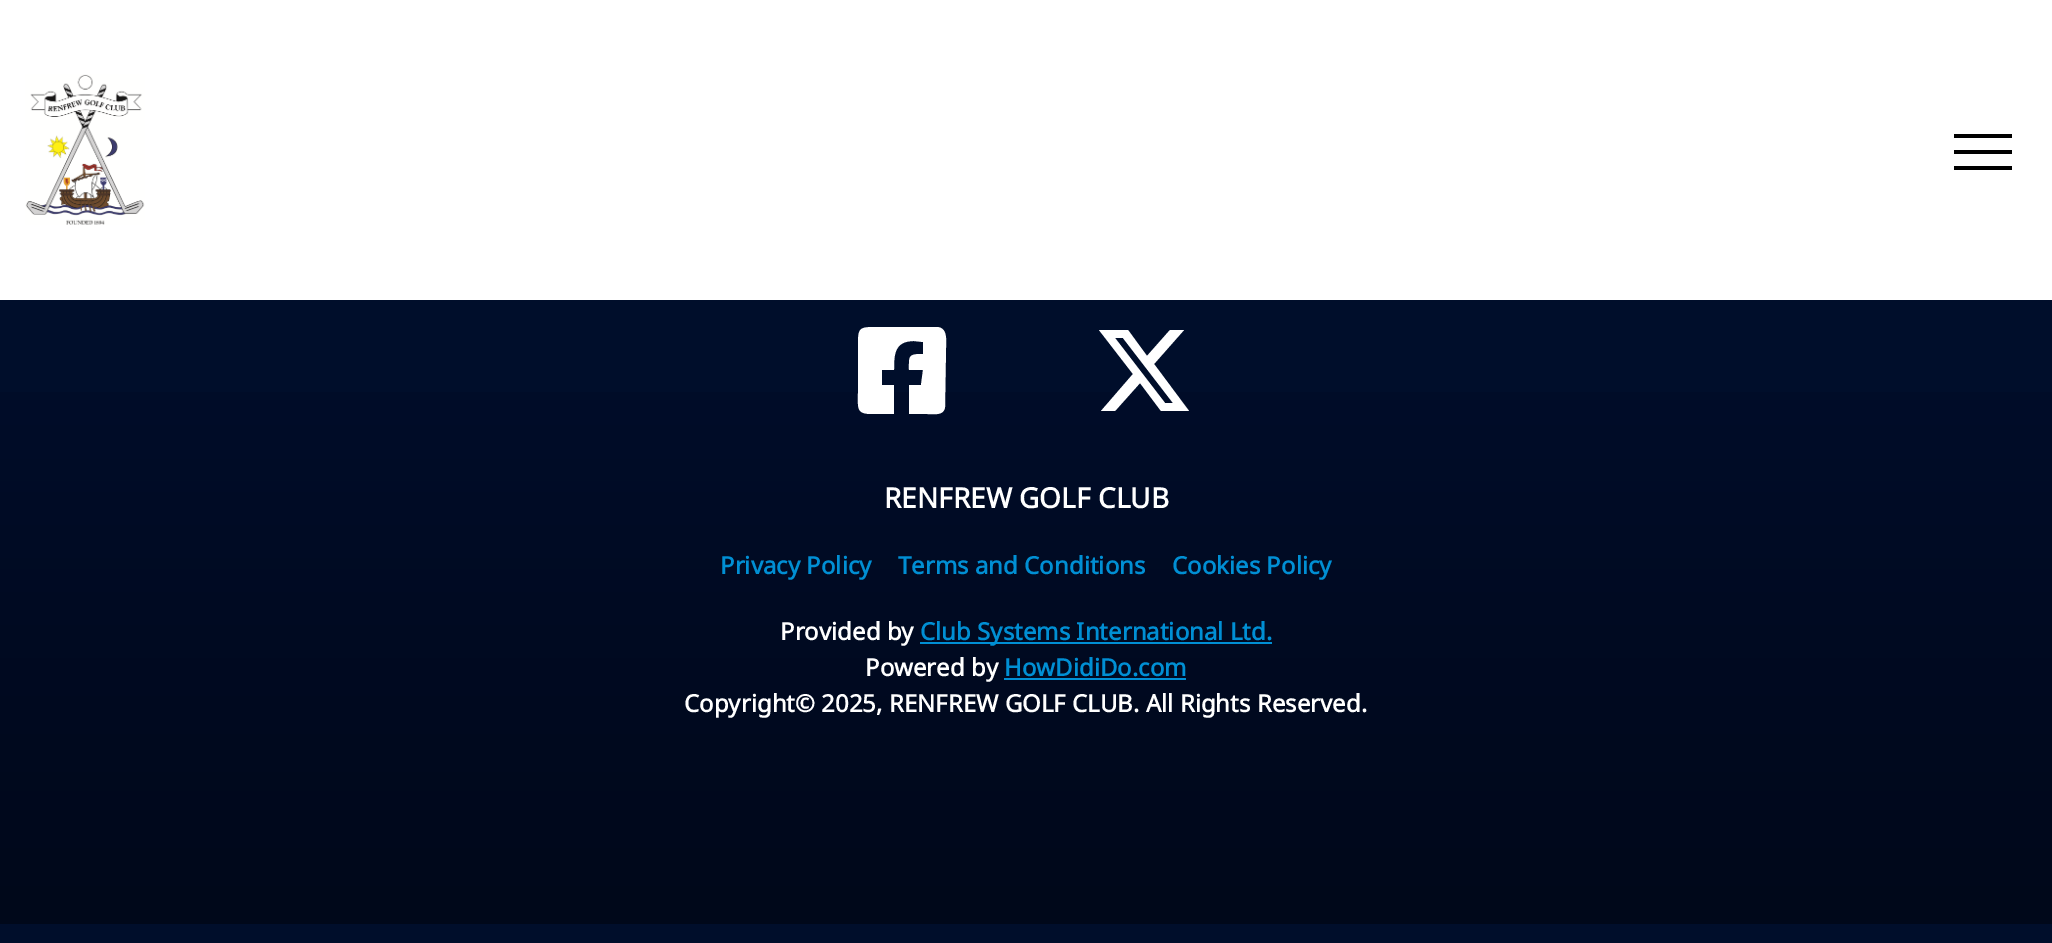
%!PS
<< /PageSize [2052 943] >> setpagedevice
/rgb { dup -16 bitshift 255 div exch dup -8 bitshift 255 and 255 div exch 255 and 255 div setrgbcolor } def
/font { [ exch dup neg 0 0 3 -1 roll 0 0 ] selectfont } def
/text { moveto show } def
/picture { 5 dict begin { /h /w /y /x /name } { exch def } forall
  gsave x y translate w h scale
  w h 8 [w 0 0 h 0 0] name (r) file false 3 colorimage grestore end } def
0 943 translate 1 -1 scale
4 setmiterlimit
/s1 { /NotoSans-Bold 28 font 16#FFFFFF rgb } def
/s2 { /NotoSans-Bold 24 font 16#008FD4 rgb } def
/s3 { /NotoSans-Bold 24 font 16#FFFFFF rgb } def
16#000E2B rgb
0 0 2052 943 rectfill
16#FFFFFF rgb
0 0 2052 300 rectfill
(pic1.raw) 25 74 120 151 picture
16#000000 rgb
1954 134 58 4 rectfill
1954 150 58 4 rectfill
1954 166 58 4 rectfill
gsave 0 392 moveto 2052 392 lineto 2052 924 lineto 0 924 lineto closepath clip newpath
<< /ShadingType 2 /ColorSpace /DeviceRGB /Coords [1026 264 1026 924] /Extend [true true] /Function << /FunctionType 2 /Domain [0 1] /C0 [0 0.055 0.173] /C1 [0 0.031 0.102] /N 1 >> >> shfill grestore
16#FFFFFF rgb
936 327 moveto 879 327 lineto 858 327 858 327 858 348 curveto 858 393 lineto 858 408 856 414 872 414 curveto 894 414 lineto 894 385 lineto 882 385 lineto 882 370 lineto 894 370 lineto 894 355 894 341 914 341 curveto 923 342 lineto 923 354 lineto 908 354 909 356 909 370 curveto 923 370 lineto 921 385 lineto 909 385 lineto 909 414 lineto 927 414 lineto 934 414 944 416 945 407 curveto 946 348 lineto 946 340 948 327 936 327 curveto closepath fill
1170 330 moveto 1184 330 lineto 1154 364 lineto 1189 411 lineto 1161 411 lineto 1140 383 lineto 1115 411 lineto 1101 411 lineto 1133 374 lineto 1099 330 lineto 1128 330 lineto 1147 356 lineto closepath 1165 403 moveto 1173 403 lineto 1123 338 lineto 1115 338 lineto closepath fill
s1
(RENFREW GOLF CLUB) 884 508 text
s2
(Privacy Policy) 720 574 text
(Terms and Conditions) 898 574 text
(Cookies Policy) 1172 574 text
s3
(Provided by) 780 640 text
16#008FD4 rgb
920 642 352 2 rectfill
(Club Systems International Ltd.) 920 640 text
s3
(Powered by) 865 676 text
s2
(HowDidiDo.com) 1004 676 text
1004 678 182 2 rectfill
s3
(Copyright© 2025, RENFREW GOLF CLUB. All Rights Reserved.) 684 712 text
showpage
